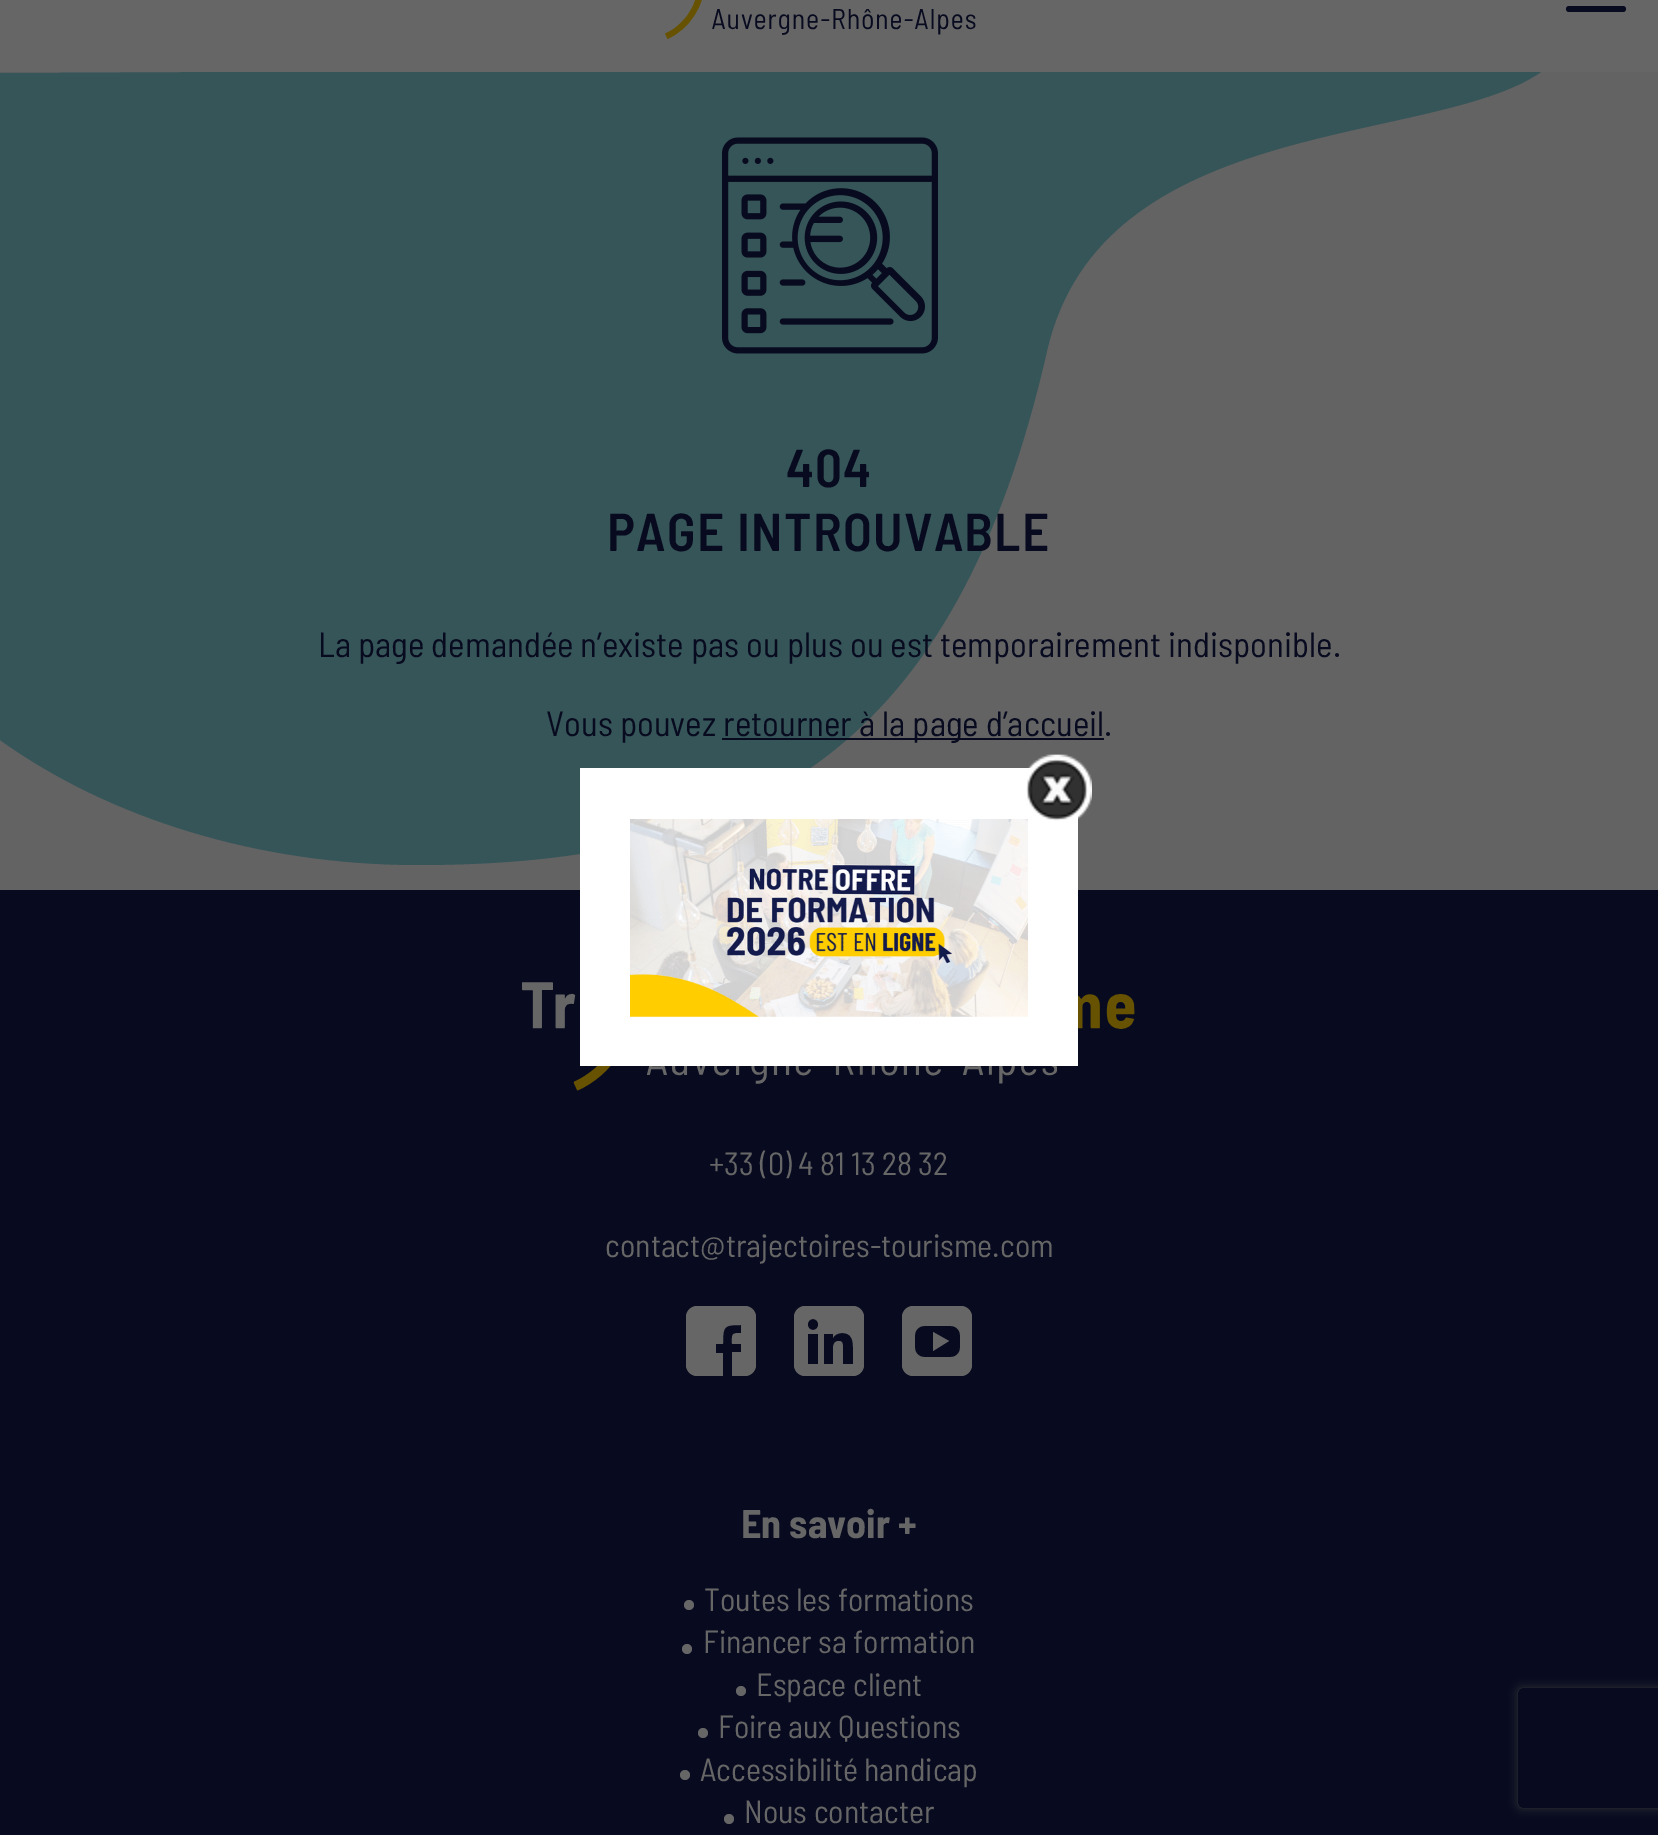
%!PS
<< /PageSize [1658 1835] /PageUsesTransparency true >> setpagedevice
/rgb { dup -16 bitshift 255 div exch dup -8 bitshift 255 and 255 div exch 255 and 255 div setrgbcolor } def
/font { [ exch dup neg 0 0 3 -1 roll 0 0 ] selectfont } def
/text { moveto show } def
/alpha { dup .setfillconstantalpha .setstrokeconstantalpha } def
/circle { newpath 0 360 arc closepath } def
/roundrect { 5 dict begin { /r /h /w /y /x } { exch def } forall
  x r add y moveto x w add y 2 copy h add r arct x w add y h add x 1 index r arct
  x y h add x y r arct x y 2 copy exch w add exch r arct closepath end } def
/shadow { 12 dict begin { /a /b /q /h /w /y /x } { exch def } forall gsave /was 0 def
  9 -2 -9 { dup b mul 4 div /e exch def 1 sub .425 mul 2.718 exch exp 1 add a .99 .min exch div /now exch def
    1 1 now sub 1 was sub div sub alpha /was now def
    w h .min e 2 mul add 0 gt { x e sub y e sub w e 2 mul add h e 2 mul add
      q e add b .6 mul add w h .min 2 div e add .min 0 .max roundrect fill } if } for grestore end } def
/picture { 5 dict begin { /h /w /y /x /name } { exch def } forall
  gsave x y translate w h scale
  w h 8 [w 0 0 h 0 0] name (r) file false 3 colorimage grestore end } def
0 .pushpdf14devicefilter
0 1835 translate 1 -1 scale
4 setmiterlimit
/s1 { /BarlowSemiCondensed-Regular 35 font 16#080B1F rgb } def
/s2 { /BarlowSemiCondensed-Regular 32 font 16#666666 rgb } def
/s3 { /BarlowSemiCondensed-Bold 40 font 16#666666 rgb } def
16#666666 rgb
0 0 1658 1835 rectfill
(pic1.raw) 665 0 311 40 picture
16#080B1F rgb
1566 6 60 6 3 roundrect fill
16#636363 rgb
0 72 1658 818 rectfill
16#355558 rgb
418 865 moveto 756 865 956 749 1047 351 curveto 1101 113 1433 147 1541 72 curveto 241 72 lineto 0 73 lineto 0 740 lineto 109 818 258 865 418 865 curveto closepath eofill
(pic2.raw) 722 137 216 217 picture
/BarlowSemiCondensed-SemiBold 53.25 font
16#080B1F rgb
786 487 moveto 1.25 0 (404) ashow
607 551 moveto 1.25 0 (PAGE INTROUVABLE) ashow
s1
(La page demandée n’existe pas ou plus ou est temporairement indisponible.) 318 657 text
(Vous pouvez) 546 736 text
722 738 382 2 rectfill
(retourner à la page d’accueil.) 723 736 text
0 890 1658 945 rectfill
(pic5.raw) 522 982 613 109 picture
16#FFFFFF rgb
580 768 498 298 rectfill
(pic4.raw) 630 819 398 198 picture
(pic3.raw) 1026 754 66 67 picture
s2
(+33 \(0\) 4 81 13 28 32) 709 1175 text
(contact@trajectoires-tourisme.com) 605 1257 text
745 1306 moveto 697 1306 lineto 691 1306 686 1311 686 1317 curveto 686 1365 lineto 686 1371 691 1376 697 1376 curveto 723 1376 lineto 723 1353 lineto 716 1353 lineto 716 1344 lineto 723 1344 lineto 723 1326 724 1325 741 1325 curveto 741 1333 lineto 731 1333 732 1334 732 1344 curveto 741 1344 lineto 741 1352 lineto 732 1352 lineto 732 1376 lineto 745 1376 lineto 751 1376 756 1371 756 1365 curveto 756 1317 lineto 756 1311 751 1306 745 1306 curveto closepath fill
853 1306 moveto 805 1306 lineto 799 1306 794 1311 794 1317 curveto 794 1365 lineto 794 1371 799 1376 805 1376 curveto 853 1376 lineto 859 1376 864 1371 864 1365 curveto 864 1317 lineto 864 1311 859 1306 853 1306 curveto closepath 813 1319 moveto 820 1319 820 1330 813 1330 curveto 806 1330 806 1319 813 1319 curveto closepath 842 1333 moveto 851 1333 853 1339 853 1347 curveto 853 1364 lineto 843 1364 lineto 843 1349 lineto 843 1345 843 1341 839 1341 curveto 834 1341 833 1345 833 1349 curveto 833 1364 lineto 824 1364 lineto 824 1334 lineto 833 1334 lineto 833 1338 lineto 834 1335 838 1333 842 1333 curveto closepath 818 1334 moveto 818 1364 lineto 808 1364 lineto 808 1334 lineto closepath eofill
961 1306 moveto 913 1306 lineto 907 1306 902 1311 902 1317 curveto 902 1365 lineto 902 1371 907 1376 913 1376 curveto 961 1376 lineto 967 1376 972 1371 972 1365 curveto 972 1317 lineto 972 1311 967 1306 961 1306 curveto closepath 924 1326 moveto 951 1326 lineto 956 1326 960 1330 960 1335 curveto 960 1348 lineto 960 1353 956 1357 951 1357 curveto 924 1357 lineto 919 1357 915 1353 915 1348 curveto 915 1335 lineto 915 1330 919 1326 924 1326 curveto closepath 933 1331 moveto 933 1332 lineto closepath 933 1332 moveto 933 1351 lineto 949 1341 lineto closepath eofill
s3
(En savoir +) 741 1538 text
689 1605 5 circle fill
s2
(Toutes les formations) 704 1611 text
687 1649 5 circle fill
(Financer sa formation) 703 1653 text
741 1691 5 circle fill
(Espace client) 756 1696 text
703 1733 5 circle fill
(Foire aux Questions) 718 1738 text
685 1775 5 circle fill
(Accessibilité handicap) 700 1781 text
729 1819 5 circle fill
(Nous contacter) 744 1823 text
gsave
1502 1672 moveto 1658 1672 lineto 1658 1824 lineto 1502 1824 lineto closepath 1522 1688 moveto 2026 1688 lineto 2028 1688 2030 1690 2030 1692 curveto 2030 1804 lineto 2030 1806 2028 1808 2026 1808 curveto 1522 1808 lineto 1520 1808 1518 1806 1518 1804 curveto 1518 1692 lineto 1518 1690 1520 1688 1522 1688 curveto closepath eoclip newpath
16#333333 rgb
1518 1688 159 120 4 5 1 shadow
grestore
.poppdf14devicefilter showpage
